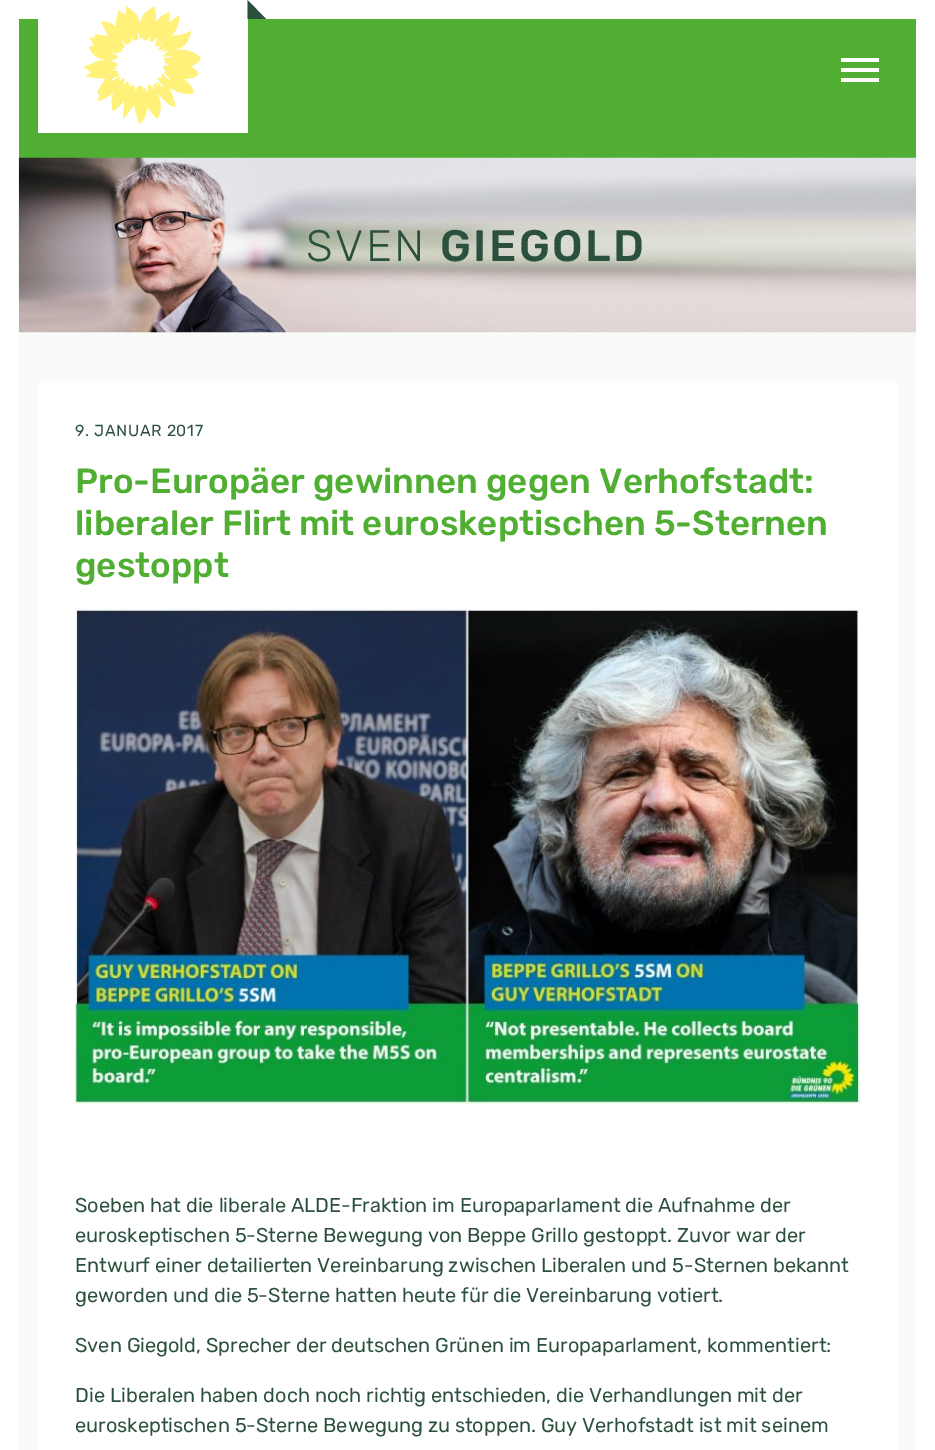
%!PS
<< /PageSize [935 1450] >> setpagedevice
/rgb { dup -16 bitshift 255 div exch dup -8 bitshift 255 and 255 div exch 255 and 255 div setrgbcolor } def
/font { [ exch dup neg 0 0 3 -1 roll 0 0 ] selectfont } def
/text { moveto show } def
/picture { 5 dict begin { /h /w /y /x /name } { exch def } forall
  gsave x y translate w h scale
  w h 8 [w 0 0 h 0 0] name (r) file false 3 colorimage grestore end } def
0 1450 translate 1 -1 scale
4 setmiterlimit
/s1 { /Rubik-Medium 34.9 font 16#50AF33 rgb } def
/s2 { /Rubik-Regular 20 font 16#2B503E rgb } def
16#FFFFFF rgb
0 0 935 1450 rectfill
16#50AF33 rgb
19 19 897 139 rectfill
16#FFFFFF rgb
841 68 38 4 rectfill
841 58 38 4 rectfill
841 78 38 4 rectfill
16#F8FBF7 rgb
19 332 897 1118 rectfill
16#FFFFFF rgb
38 19 210 114 rectfill
(pic1.raw) 83 6 118 118 picture
16#2B503E rgb
247.5 19 moveto 247.5 0 lineto 266 19 lineto closepath fill
(pic2.raw) 18 157 899 176 picture
/Rubik-Light 44 font
306 261 moveto 2.5 0 (SVEN) ashow
/Rubik-Medium 44 font
440 261 moveto 2.5 0 (GIEGOLD) ashow
16#FFFFFF rgb
38 383 860 1067 rectfill
/Rubik-Regular 16 font
16#2B503E rgb
75 436 moveto 0.6 0 (9. JANUAR 2017) ashow
s1
(Pro-Europäer gewinnen gegen Verhofstadt:) 75 493 text
(liberaler Flirt mit euroskeptischen 5-Sternen) 75 535 text
(gestoppt) 75 577 text
(pic3.raw) 75 608 785 496 picture
s2
(Soeben hat die liberale ALDE-Fraktion im Europaparlament die Aufnahme der) 75 1212 text
(euroskeptischen 5-Sterne Bewegung von Beppe Grillo gestoppt. Zuvor war der) 75 1242 text
(Entwurf einer detailierten Vereinbarung zwischen Liberalen und 5-Sternen bekannt) 75 1272 text
(geworden und die 5-Sterne hatten heute für die Vereinbarung votiert.) 75 1302 text
(Sven Giegold, Sprecher der deutschen Grünen im Europaparlament, kommentiert:) 75 1352 text
(Die Liberalen haben doch noch richtig entschieden, die Verhandlungen mit der) 75 1402 text
(euroskeptischen 5-Sterne Bewegung zu stoppen. Guy Verhofstadt ist mit seinem) 75 1432 text
showpage
